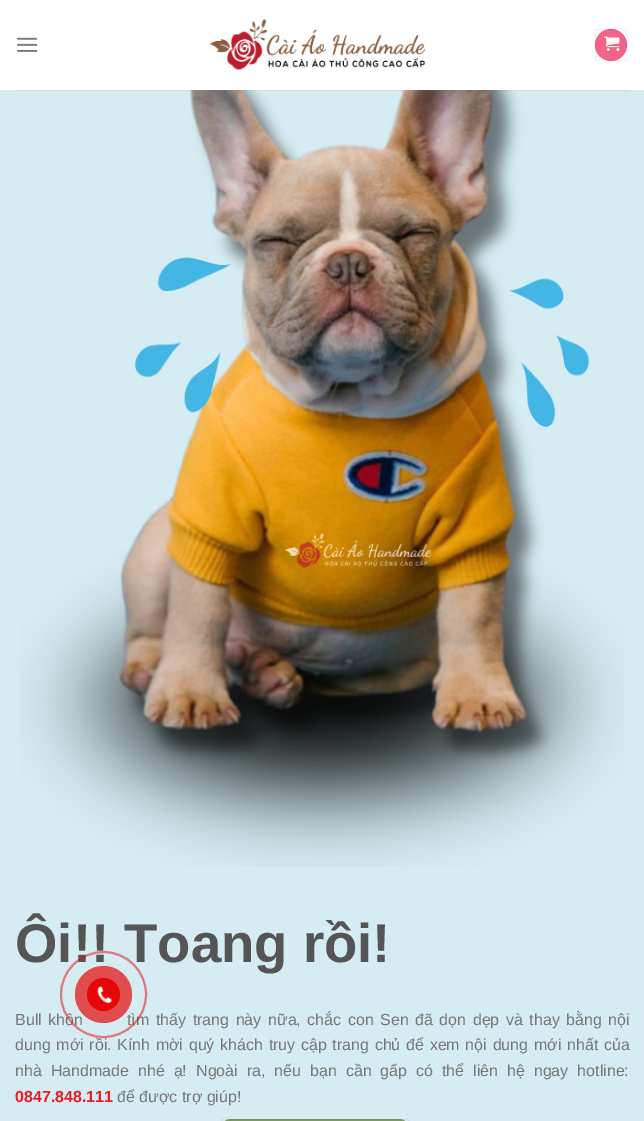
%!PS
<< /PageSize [644 1121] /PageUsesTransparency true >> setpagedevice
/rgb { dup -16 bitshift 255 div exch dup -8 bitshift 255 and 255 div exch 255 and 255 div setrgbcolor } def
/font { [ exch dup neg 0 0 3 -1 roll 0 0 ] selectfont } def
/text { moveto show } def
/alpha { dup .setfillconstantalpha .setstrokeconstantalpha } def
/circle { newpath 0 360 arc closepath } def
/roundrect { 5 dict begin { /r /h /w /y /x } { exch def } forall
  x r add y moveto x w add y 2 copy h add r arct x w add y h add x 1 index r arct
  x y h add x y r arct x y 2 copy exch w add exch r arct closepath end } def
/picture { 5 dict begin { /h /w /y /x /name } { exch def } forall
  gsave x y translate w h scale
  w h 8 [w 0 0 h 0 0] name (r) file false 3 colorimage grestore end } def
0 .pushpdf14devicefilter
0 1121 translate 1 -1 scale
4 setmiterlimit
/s1 { /LiberationSans-Bold 54.5 font 16#555555 rgb } def
/s2 { /LiberationSans-Bold 16 font 16#ED1C24 rgb } def
/s3 { /LiberationSans-Regular 16 font 16#777777 rgb } def
16#FFFFFF rgb
0 0 644 1121 rectfill
(pic1.raw) 17 37 21 15 picture
(pic2.raw) 209 18 217 53 picture
16#F36289 rgb
611 45 16 circle fill
0.05 alpha
16#000000 rgb
595.5 29.5 31 31 rectstroke
1 alpha
(pic3.raw) 604 36 16 15 picture
16#D4ECF2 rgb
0 90 644 1031 rectfill
(pic4.raw) 20 90 604 777 picture
0.1 alpha
16#777777 rgb
15 90 614 1 rectfill
1 alpha
s1
(Ôi!! Toang rồi!) 15 962 text
/LiberationSans-Regular 16 font
16#777777 rgb
15 1025 moveto 2.1 0 32 (Bull khôn) widthshow
127 1025 moveto 2.1 0 32 (tìm thấy trang này nữa, chắc con Sen đã dọn dẹp và thay bằng nội) widthshow
15 1050 moveto 1.25 0 32 (dung mới rồi.) widthshow
117 1050 moveto 1.25 0 32 (Kính mời quý khách truy cập trang chủ để xem nội dung mới nhất của) widthshow
15 1076 moveto 4.5 0 32 (nhà Handmade nhé ạ!) widthshow
196 1076 moveto 4.5 0 32 (Ngoài ra, nếu bạn cần gấp có thể liên hệ ngay hotline:) widthshow
s2
(0847.848.111) 15 1102 text
s3
(để được trợ giúp!) 117 1102 text
16#7A9C59 rgb
221 1119 188 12 10 roundrect fill
0.05 alpha
16#000000 rgb
221.5 1119.5 187 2 rectstroke
0.5 alpha
16#E60808 rgb
2 setlinewidth
103.5 994.5 42.5 circle stroke
0.7 alpha
103.5 994.5 28.5 circle fill
1 alpha
103.5 994.5 16.5 circle fill
(pic5.raw) 97 986 16 18 picture
.poppdf14devicefilter showpage
